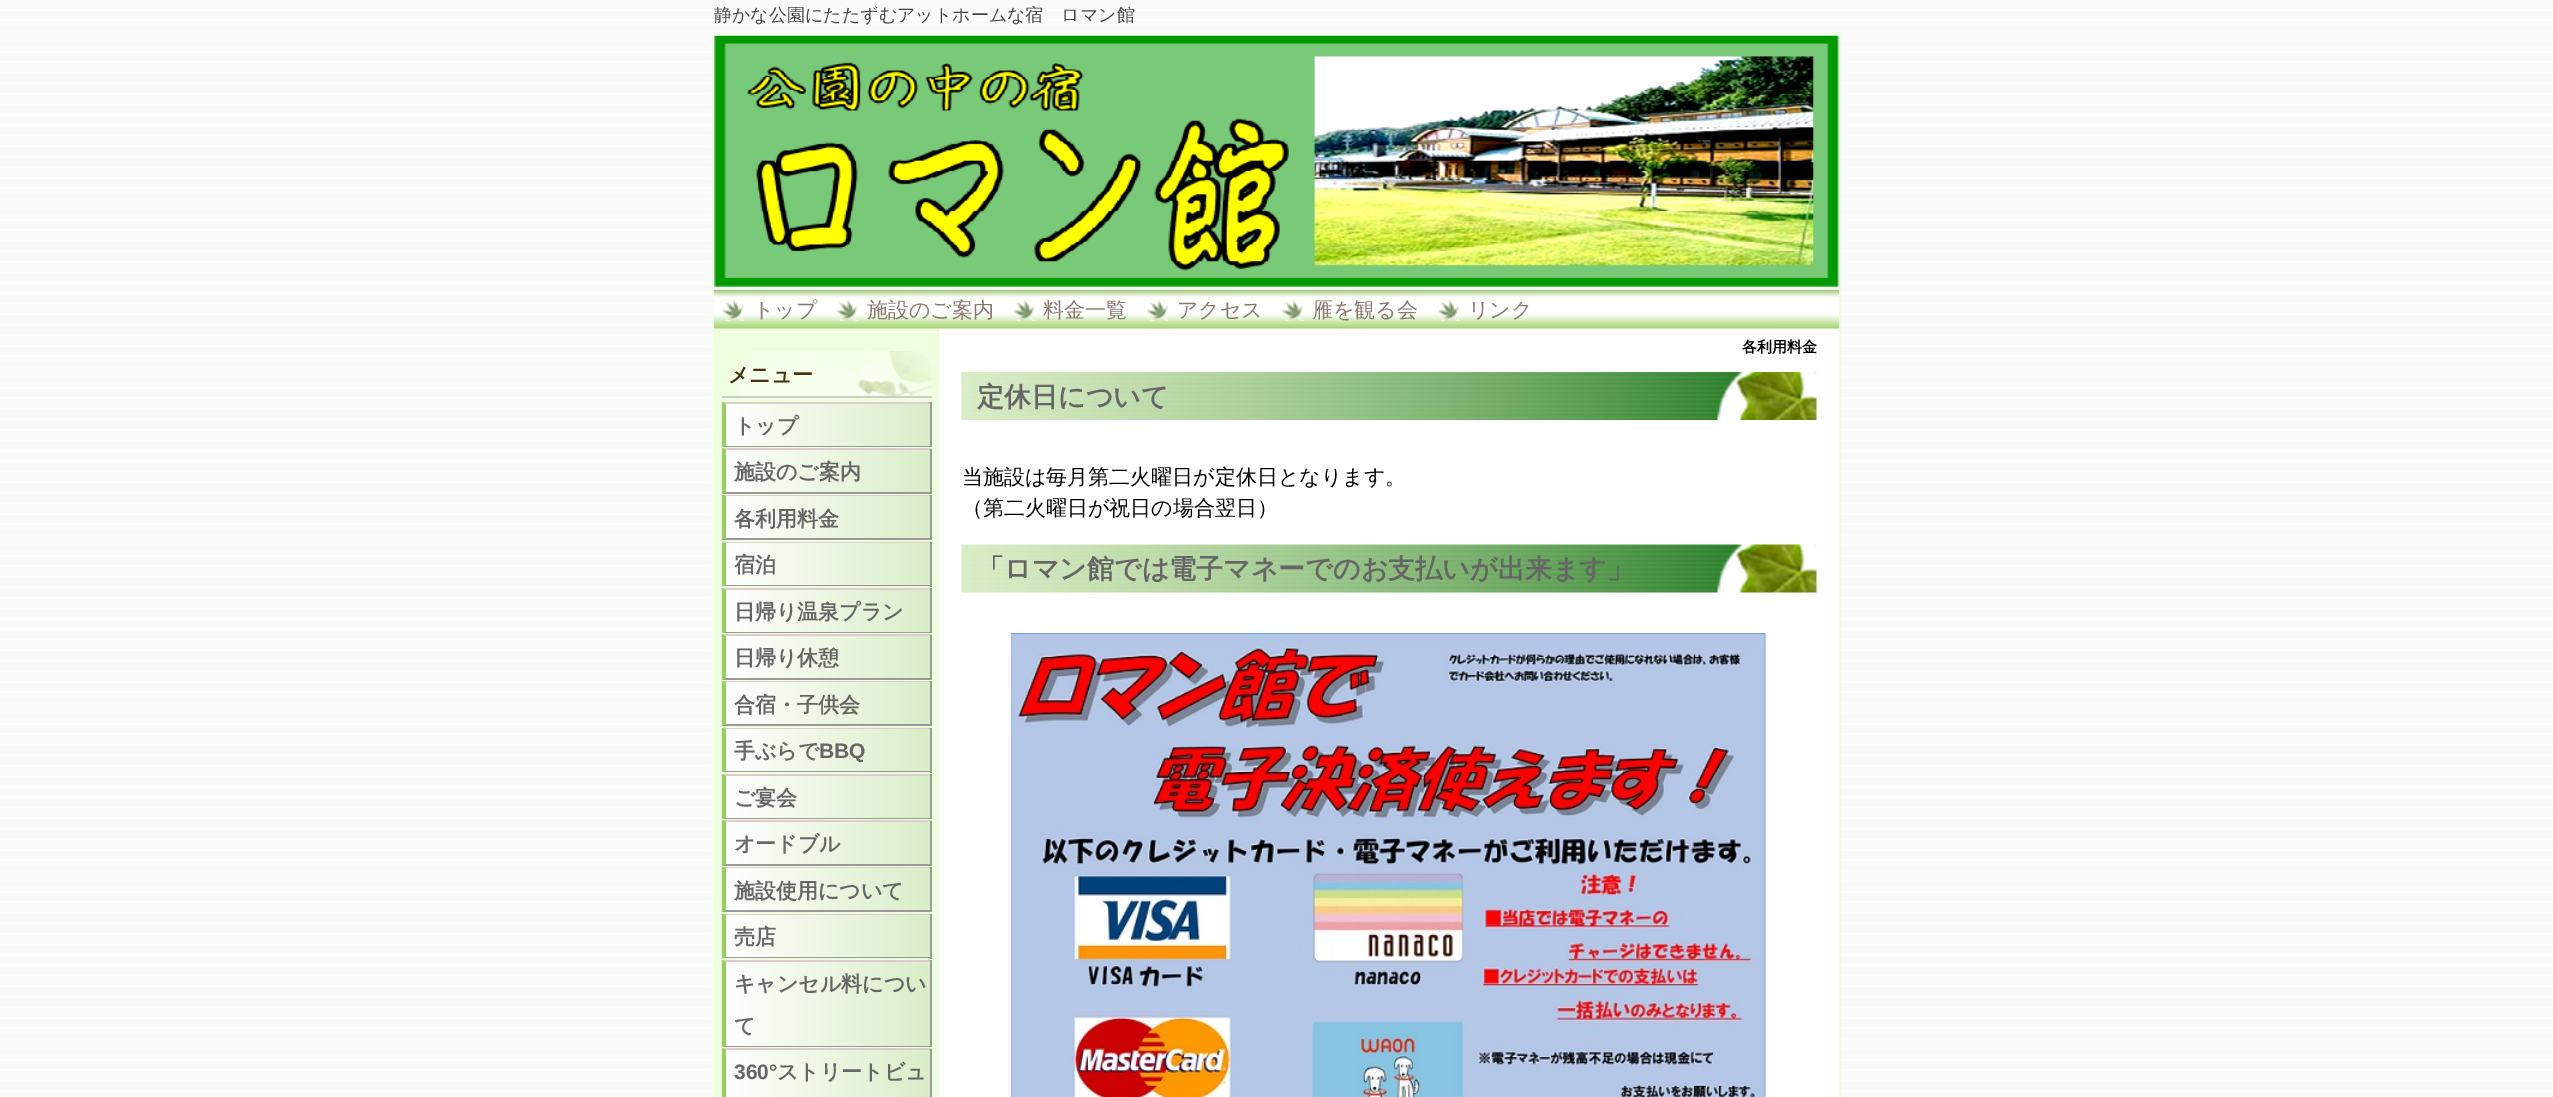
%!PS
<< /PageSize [2553 1097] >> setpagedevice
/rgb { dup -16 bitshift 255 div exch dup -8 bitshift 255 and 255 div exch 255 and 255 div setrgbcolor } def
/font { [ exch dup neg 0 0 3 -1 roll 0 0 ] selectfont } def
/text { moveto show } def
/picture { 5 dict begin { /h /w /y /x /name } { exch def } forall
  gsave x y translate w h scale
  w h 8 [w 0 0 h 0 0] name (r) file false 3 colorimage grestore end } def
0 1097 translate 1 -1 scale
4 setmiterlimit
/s1 { /WenQuanYiZenHei-Medium 18 font 16#444444 rgb } def
/s2 { /WenQuanYiZenHei-Medium 21 font 16#89796E rgb } def
/s3 { /WenQuanYiZenHei-Bold 21 font 16#443311 rgb } def
/s4 { /WenQuanYiZenHei-Bold 21 font 16#666666 rgb } def
/s5 { /LiberationSans-Bold 21 font 16#666666 rgb } def
/s6 { /WenQuanYiZenHei-Bold 15 font 16#000000 rgb } def
/s7 { /WenQuanYiZenHei-Bold 27 font 16#666666 rgb } def
/s8 { /WenQuanYiZenHei-Medium 21 font 16#000000 rgb } def
16#FFFFFF rgb
0 0 2553 1097 rectfill
(pic1.raw) 0 0 2553 1097 picture
s1
(静かな公園にたたずむアットホームな宿　ロマン館) 714 21 text
16#FFFFFF rgb
715 289 1124 808 rectfill
16#EEFFDD rgb
2 setlinewidth
714 34 1126 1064 rectstroke
16#FFFFFF rgb
714 328 1 1 rectfill
(pic3.raw) 714 289 1125 40 picture
(pic2.raw) 714 34 1125 256 picture
(pic4.raw) 723 299 22 22 picture
s2
(トップ) 753 317 text
(pic5.raw) 837 299 22 22 picture
(施設のご案内) 867 317 text
(pic5.raw) 1014 299 22 22 picture
(料金一覧) 1043 317 text
(pic6.raw) 1147 299 22 22 picture
(アクセス) 1177 317 text
(pic6.raw) 1282 299 22 22 picture
(雁を観る会) 1312 317 text
(pic6.raw) 1438 299 22 22 picture
(リンク) 1468 317 text
16#EEFFDD rgb
715 329 224 768 rectfill
(pic7.raw) 736 351 196 45 picture
16#CCCCCC rgb
722 396 210 2 rectfill
s3
(メニュー) 728 382 text
(pic8.raw) 721 402 209 45 picture
16#DDCCCC rgb
722 402 moveto 932 402 lineto 930 404 lineto 726 404 lineto closepath fill
16#999999 rgb
930 402 2 45 rectfill
932 447 moveto 722 447 lineto 726 446 lineto 930 446 lineto closepath fill
16#99CC66 rgb
722 447 moveto 722 402 lineto 726 404 lineto 726 446 lineto closepath fill
s4
(トップ) 734 433 text
(pic9.raw) 721 448 211 46 picture
16#DDCCCC rgb
722 448 moveto 932 448 lineto 930 450 lineto 726 450 lineto closepath fill
16#999999 rgb
930 449 2 45 rectfill
932 494 moveto 722 494 lineto 726 492 lineto 930 492 lineto closepath fill
16#99CC66 rgb
722 494 moveto 722 448 lineto 726 450 lineto 726 492 lineto closepath fill
s4
(施設のご案内) 734 479 text
(pic8.raw) 721 495 209 45 picture
16#DDCCCC rgb
722 495 moveto 932 495 lineto 930 496 lineto 726 496 lineto closepath fill
16#999999 rgb
930 495 2 45 rectfill
932 540 moveto 722 540 lineto 726 538 lineto 930 538 lineto closepath fill
16#99CC66 rgb
722 540 moveto 722 495 lineto 726 496 lineto 726 538 lineto closepath fill
s4
(各利用料金) 734 526 text
(pic9.raw) 721 541 211 46 picture
16#DDCCCC rgb
722 542 moveto 932 542 lineto 930 543 lineto 726 543 lineto closepath fill
16#999999 rgb
930 542 2 45 rectfill
932 586 moveto 722 586 lineto 726 585 lineto 930 585 lineto closepath fill
16#99CC66 rgb
722 586 moveto 722 542 lineto 726 543 lineto 726 585 lineto closepath fill
s4
(宿泊) 734 572 text
(pic8.raw) 721 588 209 45 picture
16#DDCCCC rgb
722 588 moveto 932 588 lineto 930 590 lineto 726 590 lineto closepath fill
16#999999 rgb
930 588 2 45 rectfill
932 633 moveto 722 633 lineto 726 632 lineto 930 632 lineto closepath fill
16#99CC66 rgb
722 633 moveto 722 588 lineto 726 590 lineto 726 632 lineto closepath fill
s4
(日帰り温泉プラン) 734 619 text
(pic9.raw) 721 634 211 46 picture
16#DDCCCC rgb
722 634 moveto 932 634 lineto 930 636 lineto 726 636 lineto closepath fill
16#999999 rgb
930 635 2 45 rectfill
932 680 moveto 722 680 lineto 726 678 lineto 930 678 lineto closepath fill
16#99CC66 rgb
722 680 moveto 722 634 lineto 726 636 lineto 726 678 lineto closepath fill
s4
(日帰り休憩) 734 665 text
(pic8.raw) 721 681 209 45 picture
16#DDCCCC rgb
722 681 moveto 932 681 lineto 930 682 lineto 726 682 lineto closepath fill
16#999999 rgb
930 681 2 45 rectfill
932 726 moveto 722 726 lineto 726 724 lineto 930 724 lineto closepath fill
16#99CC66 rgb
722 726 moveto 722 681 lineto 726 682 lineto 726 724 lineto closepath fill
s4
(合宿・子供会) 734 712 text
(pic9.raw) 721 727 211 46 picture
16#DDCCCC rgb
722 728 moveto 932 728 lineto 930 729 lineto 726 729 lineto closepath fill
16#999999 rgb
930 728 2 45 rectfill
932 772 moveto 722 772 lineto 726 771 lineto 930 771 lineto closepath fill
16#99CC66 rgb
722 772 moveto 722 728 lineto 726 729 lineto 726 771 lineto closepath fill
s4
(手ぶらで) 734 758 text
s5
(BBQ) 819 758 text
(pic8.raw) 721 774 209 45 picture
16#DDCCCC rgb
722 774 moveto 932 774 lineto 930 776 lineto 726 776 lineto closepath fill
16#999999 rgb
930 774 2 45 rectfill
932 819 moveto 722 819 lineto 726 818 lineto 930 818 lineto closepath fill
16#99CC66 rgb
722 819 moveto 722 774 lineto 726 776 lineto 726 818 lineto closepath fill
s4
(ご宴会) 734 805 text
(pic9.raw) 721 820 211 46 picture
16#DDCCCC rgb
722 820 moveto 932 820 lineto 930 822 lineto 726 822 lineto closepath fill
16#999999 rgb
930 821 2 45 rectfill
932 866 moveto 722 866 lineto 726 864 lineto 930 864 lineto closepath fill
16#99CC66 rgb
722 866 moveto 722 820 lineto 726 822 lineto 726 864 lineto closepath fill
s4
(オードブル) 734 851 text
(pic8.raw) 721 867 209 45 picture
16#DDCCCC rgb
722 867 moveto 932 867 lineto 930 868 lineto 726 868 lineto closepath fill
16#999999 rgb
930 867 2 45 rectfill
932 912 moveto 722 912 lineto 726 910 lineto 930 910 lineto closepath fill
16#99CC66 rgb
722 912 moveto 722 867 lineto 726 868 lineto 726 910 lineto closepath fill
s4
(施設使用について) 734 898 text
(pic9.raw) 721 913 211 46 picture
16#DDCCCC rgb
722 914 moveto 932 914 lineto 930 915 lineto 726 915 lineto closepath fill
16#999999 rgb
930 914 2 45 rectfill
932 958 moveto 722 958 lineto 726 957 lineto 930 957 lineto closepath fill
16#99CC66 rgb
722 958 moveto 722 914 lineto 726 915 lineto 726 957 lineto closepath fill
s4
(売店) 734 944 text
(pic10.raw) 721 960 209 87 picture
16#DDCCCC rgb
722 960 moveto 932 960 lineto 930 962 lineto 726 962 lineto closepath fill
16#999999 rgb
930 960 2 87 rectfill
932 1047 moveto 722 1047 lineto 726 1046 lineto 930 1046 lineto closepath fill
16#99CC66 rgb
722 1047 moveto 722 960 lineto 726 962 lineto 726 1046 lineto closepath fill
s4
(キャンセル料につい) 734 991 text
(て) 734 1033 text
(pic11.raw) 721 1048 211 49 picture
16#DDCCCC rgb
722 1048 moveto 932 1048 lineto 930 1050 lineto 726 1050 lineto closepath fill
16#999999 rgb
930 1049 2 48 rectfill
16#99CC66 rgb
722 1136 moveto 722 1048 lineto 726 1050 lineto 726 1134 lineto closepath fill
s5
(360°) 734 1079 text
s4
(ストリートビュ) 777 1079 text
s6
(各利用料金) 1742 352 text
(pic12.raw) 961 372 856 48 picture
s7
(定休日について) 977 406 text
s8
(当施設は毎月第二火曜日が定休日となります。) 962 484 text
(（第二火曜日が祝日の場合翌日）) 962 515 text
(pic13.raw) 961 544 856 49 picture
s7
(「ロマン館では電子マネーでのお支払いが出来ます」) 977 578 text
(pic14.raw) 1011 633 756 464 picture
showpage
